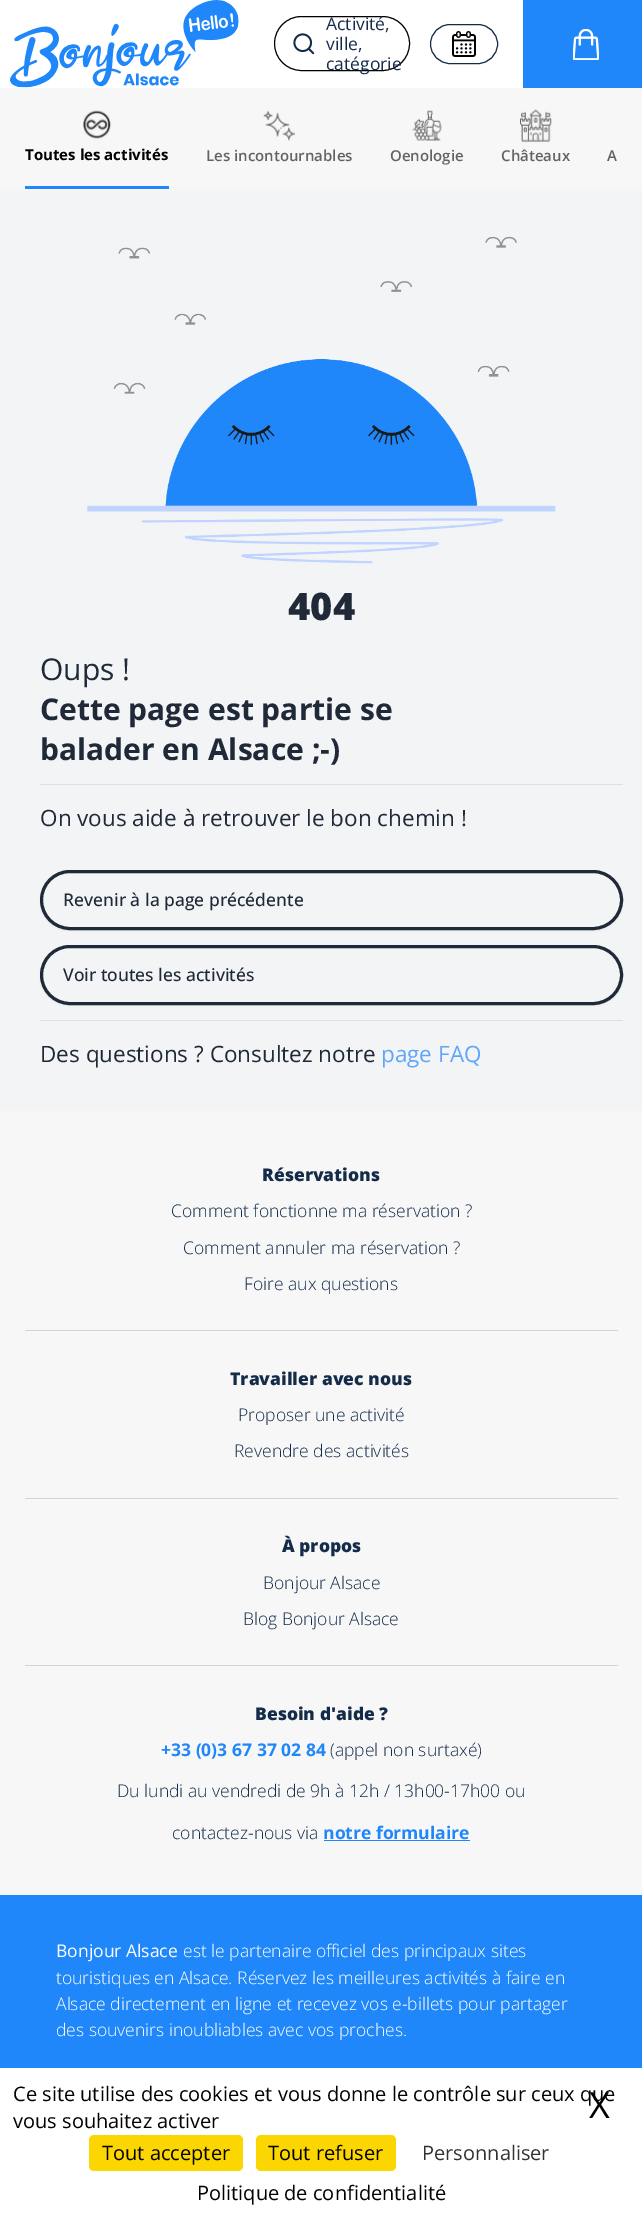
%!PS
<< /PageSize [642 2223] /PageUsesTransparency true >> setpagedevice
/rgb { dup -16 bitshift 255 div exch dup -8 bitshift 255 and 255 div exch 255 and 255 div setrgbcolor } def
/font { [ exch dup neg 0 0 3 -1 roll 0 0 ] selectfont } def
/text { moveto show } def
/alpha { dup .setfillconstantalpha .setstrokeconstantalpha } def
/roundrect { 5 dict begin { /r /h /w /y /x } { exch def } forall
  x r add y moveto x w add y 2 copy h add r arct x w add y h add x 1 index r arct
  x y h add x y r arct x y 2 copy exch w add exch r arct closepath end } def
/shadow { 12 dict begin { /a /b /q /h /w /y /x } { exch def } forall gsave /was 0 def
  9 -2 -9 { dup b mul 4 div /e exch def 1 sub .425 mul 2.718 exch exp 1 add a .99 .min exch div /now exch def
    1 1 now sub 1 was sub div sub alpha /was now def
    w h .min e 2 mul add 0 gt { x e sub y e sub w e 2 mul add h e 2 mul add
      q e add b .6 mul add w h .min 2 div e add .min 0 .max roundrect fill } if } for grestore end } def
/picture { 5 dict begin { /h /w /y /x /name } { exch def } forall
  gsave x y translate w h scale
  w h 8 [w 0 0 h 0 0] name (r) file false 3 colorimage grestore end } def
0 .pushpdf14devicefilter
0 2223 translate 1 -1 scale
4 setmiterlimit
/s1 { /OpenSans-Regular 17.5 font 16#142C4A rgb } def
/s2 { /OpenSans-Bold 15 font 16#000000 rgb } def
/s3 { /OpenSans-SemiBold 15 font 16#636363 rgb } def
/s4 { /OpenSans-ExtraBold 38 font 16#1F2937 rgb } def
/s5 { /OpenSans-Regular 30 font 16#1F2937 rgb } def
/s6 { /OpenSans-Bold 30 font 16#1F2937 rgb } def
/s7 { /OpenSans-Regular 22.5 font 16#1F2937 rgb } def
/s8 { /OpenSans-Medium 17.5 font 16#1F2937 rgb } def
/s9 { /OpenSans-Regular 22.5 font 16#60A5FA rgb } def
/s10 { /OpenSans-ExtraBold 17.5 font 16#142C4A rgb } def
/s11 { /OpenSans-Light 17.5 font 16#142C4A rgb } def
/s12 { /OpenSans-Bold 17.5 font 16#1F87F9 rgb } def
/s13 { /OpenSans-Regular 17.5 font 16#FFFFFF rgb } def
/s14 { /OpenSans-Light 17.5 font 16#FFFFFF rgb } def
/s15 { /OpenSans-Regular 20 font 16#000000 rgb } def
/s16 { /OpenSans-Regular 36 font 16#000000 rgb } def
/s17 { /OpenSans-Regular 20 font 16#333333 rgb } def
16#FFFFFF rgb
0 0 642 2223 rectfill
(pic1.raw) 10 0 229 88 picture
16#000000 rgb
274.5 16.5 135 54 27 roundrect stroke
(pic2.raw) 293 33 22 22 picture
s1
(Activité,) 326 30 text
(ville,) 326 50 text
(catégorie) 326 70 text
430.5 24.5 67 39 19.5 roundrect stroke
(pic3.raw) 452 31 24 26 picture
16#1F87F9 rgb
523 0 119 88 rectfill
(pic4.raw) 573 29 26 31 picture
16#F7F7F7 rgb
0 88 642 103 rectfill
16#1F87F9 rgb
25 186 144 3 rectfill
(pic5.raw) 83 110 28 29 picture
s2
(Toutes les activités) 25 160 text
(pic6.raw) 263 110 32 31 picture
s3
(Les incontournables) 206 161 text
(pic7.raw) 412 110 30 31 picture
(Oenologie) 390 161 text
(pic8.raw) 520 109 32 33 picture
(Châteaux) 501 161 text
(A) 607 161 text
16#F3F4F6 rgb
0 191 642 920 rectfill
(pic9.raw) 87 236 469 328 picture
s4
(404) 288 620 text
s5
(Oups !) 40 680 text
s6
(Cette page est partie se) 40 720 text
(balader en Alsace ;-\)) 40 760 text
16#DFDFDF rgb
40 784 583 1 rectfill
s7
(On vous aide à retrouver le bon chemin !) 40 826 text
16#000000 rgb
40 871 583 60 30 1 0.05 shadow
16#F3F4F6 rgb
41.5 871.5 580 57 28.5 roundrect gsave fill grestore
16#1F2937 rgb
3 setlinewidth
stroke
s8
(Revenir à la page précédente) 63 906 text
16#000000 rgb
40 946 583 60 30 1 0.05 shadow
16#F3F4F6 rgb
41.5 946.5 580 57 28.5 roundrect gsave fill grestore
16#1F2937 rgb
stroke
(Voir toutes les activités) 63 981 text
16#DFDFDF rgb
40 1020 583 1 rectfill
s7
(Des questions ? Consultez notre) 40 1062 text
s9
(page FAQ) 381 1062 text
16#F7F7F7 rgb
0 1111 642 784 rectfill
s10
(Réservations) 262 1181 text
s11
(Comment fonctionne ma réservation ?) 171 1217 text
(Comment annuler ma réservation ?) 183 1254 text
(Foire aux questions) 244 1290 text
16#D1D5DB rgb
25 1330 593 1 rectfill
s10
(Travailler avec nous) 230 1385 text
s11
(Proposer une activité) 238 1421 text
(Revendre des activités) 234 1457 text
16#D1D5DB rgb
25 1498 593 1 rectfill
s10
(À propos) 282 1552 text
s11
(Bonjour Alsace) 263 1589 text
(Blog Bonjour Alsace) 243 1625 text
16#D1D5DB rgb
25 1665 593 1 rectfill
s10
(Besoin d'aide ?) 255 1720 text
s12
(+33 \(0\)3 67 37 02 84) 161 1756 text
s11
(\(appel non surtaxé\)) 330 1756 text
(Du lundi au vendredi de 9h à 12h / 13h00-17h00 ou) 117 1797 text
(contactez-nous via) 172 1839 text
s12
(notre formulaire) 323 1839 text
324 1840 146 1 rectfill
0 1895 642 173 rectfill
s13
(Bonjour Alsace) 56 1957 text
s14
(est le partenaire officiel des principaux sites) 183 1957 text
(touristiques en Alsace. Réservez les meilleures activités à faire en) 56 1984 text
(Alsace directement en ligne et recevez vos e-billets pour partager) 56 2010 text
(des souvenirs inoubliables avec vos proches.) 56 2036 text
s15
(Ce site utilise des cookies et vous donne le contrôle sur ceux que) 13 2101 text
(vous souhaitez activer) 13 2128 text
s16
(X) 589 2118 text
16#FBD600 rgb
89 2135 154 36 5 roundrect fill
s15
(Tout accepter) 102 2160 text
16#FBD600 rgb
256 2135 140 36 5 roundrect fill
s15
(Tout refuser) 268 2160 text
s17
(Personnaliser) 422 2160 text
s15
(Politique de confidentialité) 197 2200 text
.poppdf14devicefilter showpage
